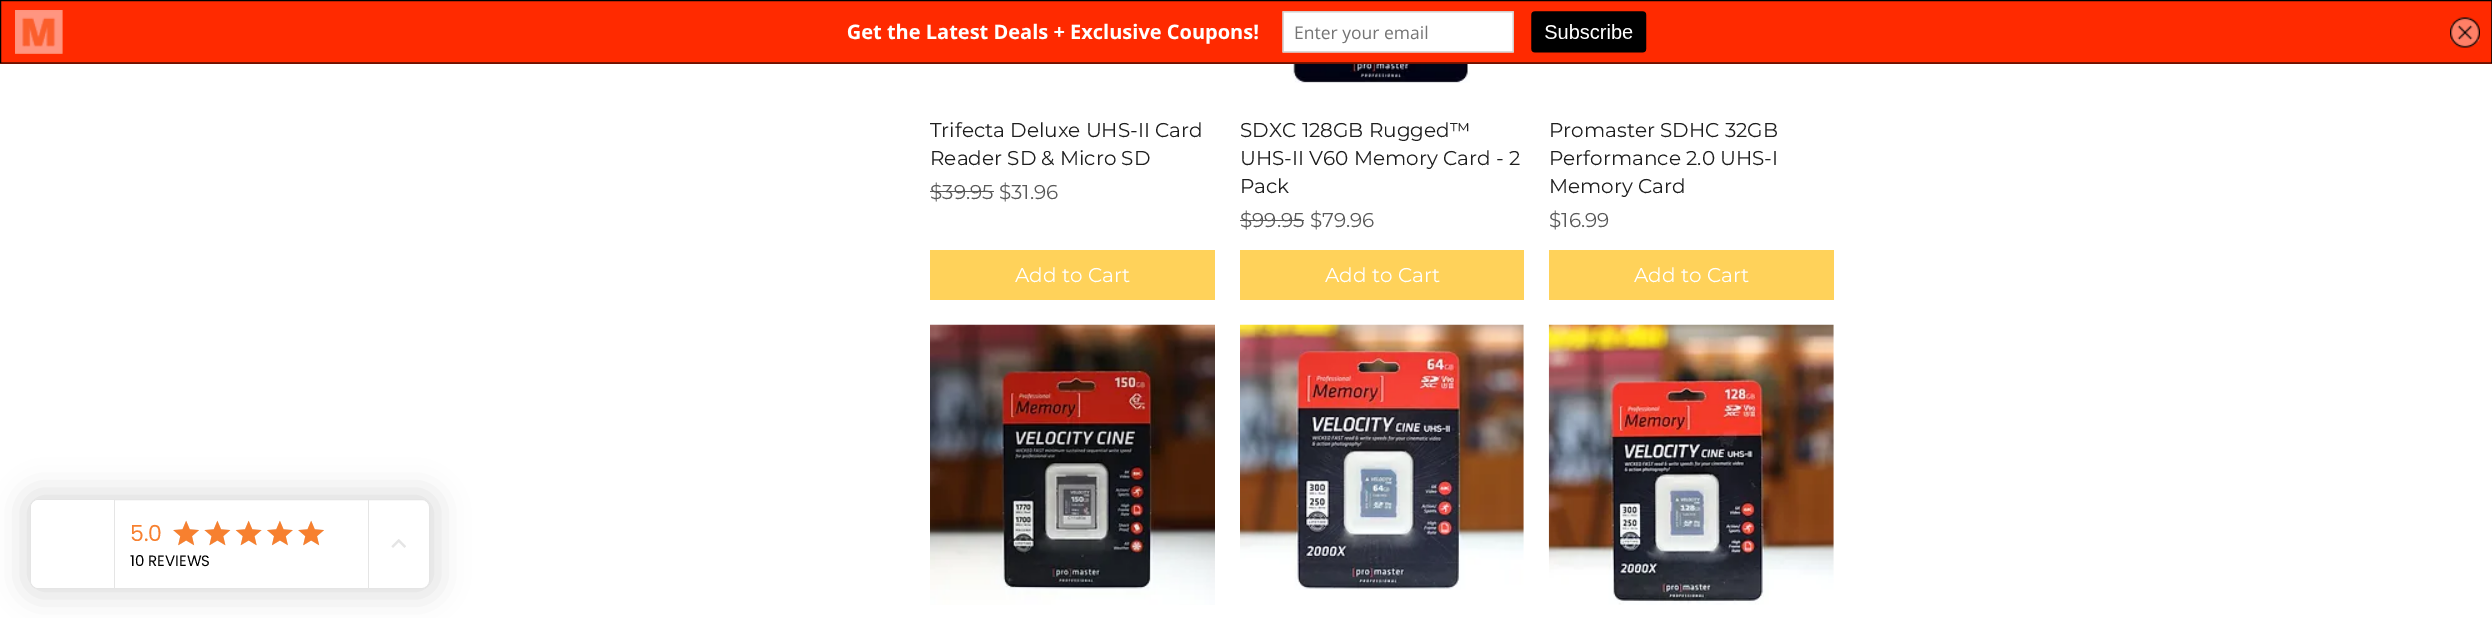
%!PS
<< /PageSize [2492 618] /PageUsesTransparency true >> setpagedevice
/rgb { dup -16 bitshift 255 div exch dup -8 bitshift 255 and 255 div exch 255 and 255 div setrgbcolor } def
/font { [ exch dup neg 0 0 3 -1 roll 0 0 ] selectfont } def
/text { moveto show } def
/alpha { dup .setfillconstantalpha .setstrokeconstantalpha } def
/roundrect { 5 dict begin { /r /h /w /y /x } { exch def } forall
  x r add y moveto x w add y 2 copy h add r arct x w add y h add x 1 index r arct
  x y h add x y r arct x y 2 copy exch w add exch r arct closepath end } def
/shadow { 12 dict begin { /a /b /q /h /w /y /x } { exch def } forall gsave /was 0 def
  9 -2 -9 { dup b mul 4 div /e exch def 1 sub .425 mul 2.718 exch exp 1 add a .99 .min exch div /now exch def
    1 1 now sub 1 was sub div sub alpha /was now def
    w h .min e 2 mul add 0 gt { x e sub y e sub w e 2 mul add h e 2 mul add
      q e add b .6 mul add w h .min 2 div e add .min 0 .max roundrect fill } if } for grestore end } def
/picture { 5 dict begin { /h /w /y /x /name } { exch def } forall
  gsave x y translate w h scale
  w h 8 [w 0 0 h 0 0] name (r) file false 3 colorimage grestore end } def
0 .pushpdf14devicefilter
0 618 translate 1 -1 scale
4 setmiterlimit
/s1 { /Montserrat-Regular 20 font 16#1F1F1F rgb } def
/s2 { /Montserrat-Regular 20 font 16#5A5A5A rgb } def
/s3 { /Montserrat-Regular 20 font 16#FFFFFF rgb } def
/s4 { /Poppins-Regular 22 font 16#F7802F rgb } def
/s5 { /Poppins-Regular 15 font 16#000000 rgb } def
16#FFFFFF rgb
0 0 2492 618 rectfill
(pic1.raw) 0 0 2492 64 picture
s1
(Trifecta Deluxe UHS-II Card) 930 137 text
(Reader SD & Micro SD) 930 165 text
s2
($39.95 $31.96) 930 199 text
930 191 64 1 rectfill
16#FFD25A rgb
930 250 285 50 rectfill
s3
(Add to Cart) 1015 282 text
(pic2.raw) 1290 64 180 19 picture
s1
(SDXC 128GB Rugged™) 1240 137 text
(UHS-II V60 Memory Card - 2) 1240 165 text
(Pack) 1240 193 text
s2
($99.95 $79.96) 1240 227 text
1240 220 64 1 rectfill
16#FFD25A rgb
1240 250 284 50 rectfill
s3
(Add to Cart) 1325 282 text
s1
(Promaster SDHC 32GB) 1549 137 text
(Performance 2.0 UHS-I) 1549 165 text
(Memory Card) 1549 193 text
s2
($16.99) 1549 227 text
16#FFD25A rgb
1549 250 285 50 rectfill
s3
(Add to Cart) 1634 282 text
(pic3.raw) 930 324 285 281 picture
(pic4.raw) 1240 324 284 266 picture
(pic5.raw) 1548 324 286 281 picture
16#000000 rgb
23 491 415 105 15 15 0.12 shadow
16#FFFFFF rgb
30.5 499.5 399 89 7.5 roundrect gsave fill grestore
16#E5E5E5 rgb
stroke
16#FFFFFF rgb
39 500 moveto 115 500 lineto 115 588 lineto 39 588 lineto 34.5 588 31 584.5 31 580 curveto 31 508 lineto 31 503.5 34.5 500 39 500 curveto closepath fill
16#E5E5E5 rgb
114 500 1 88 rectfill
368 500 1 88 rectfill
s4
(5.0) 130 541 text
(pic7.raw) 173 521 26 24 picture
(pic6.raw) 173 520 26 26 picture
(pic9.raw) 204 521 26 24 picture
(pic8.raw) 204 520 27 26 picture
(pic11.raw) 236 521 26 24 picture
(pic10.raw) 235 520 27 26 picture
(pic13.raw) 267 521 26 24 picture
(pic12.raw) 267 520 26 26 picture
(pic7.raw) 298 521 26 24 picture
(pic6.raw) 298 520 26 26 picture
s5
(10 REVIEWS) 130 566 text
(pic14.raw) 391 539 15 9 picture
.poppdf14devicefilter showpage
